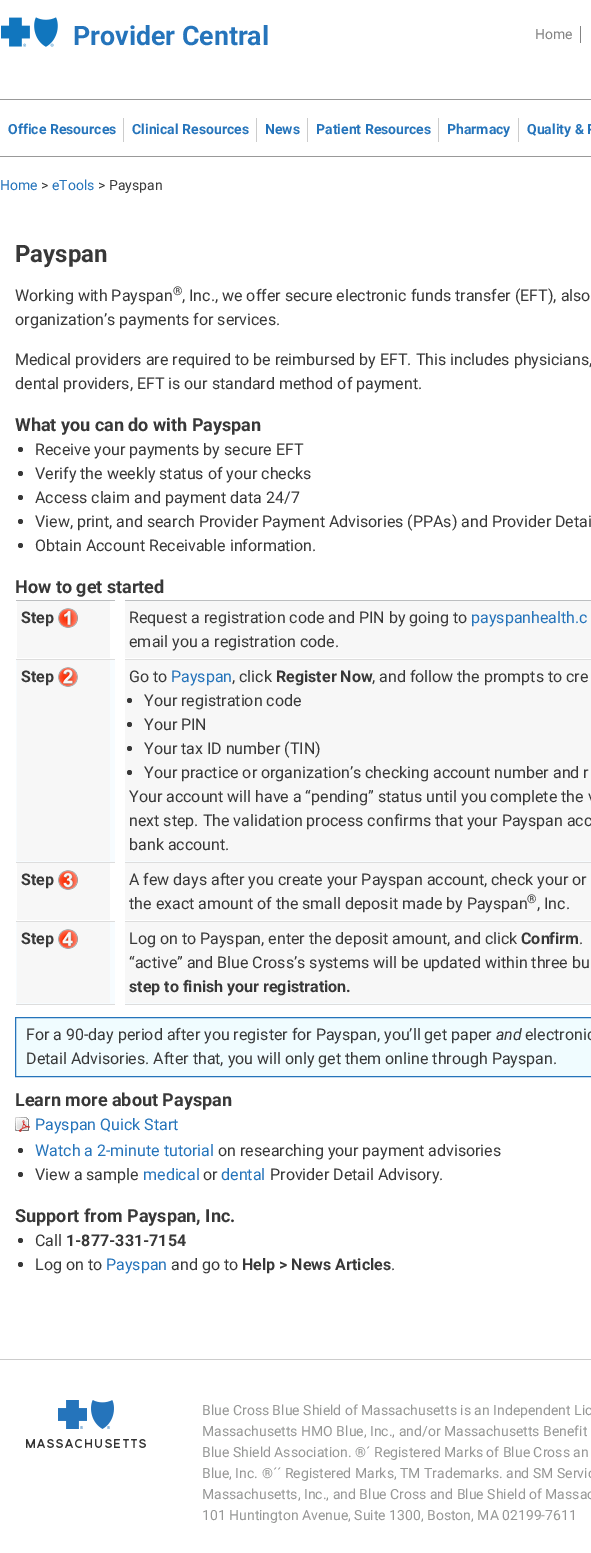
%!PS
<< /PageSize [591 1553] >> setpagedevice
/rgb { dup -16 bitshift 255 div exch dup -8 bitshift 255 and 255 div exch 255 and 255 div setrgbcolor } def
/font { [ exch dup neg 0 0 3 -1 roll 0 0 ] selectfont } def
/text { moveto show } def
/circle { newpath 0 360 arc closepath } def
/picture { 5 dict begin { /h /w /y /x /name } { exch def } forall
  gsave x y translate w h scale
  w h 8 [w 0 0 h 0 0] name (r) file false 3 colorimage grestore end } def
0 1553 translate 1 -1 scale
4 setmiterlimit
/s1 { /Roboto-Bold 26.75 font 16#2574BB rgb } def
/s2 { /Roboto-Regular 14 font 16#838383 rgb } def
/s3 { /Roboto-Bold 14 font 16#2574BB rgb } def
/s4 { /Roboto-Regular 14 font 16#2574BB rgb } def
/s5 { /Roboto-Regular 14 font 16#383838 rgb } def
/s6 { /Roboto-Bold 24 font 16#383838 rgb } def
/s7 { /Roboto-Regular 16 font 16#383838 rgb } def
/s8 { /Roboto-Regular 12 font 16#383838 rgb } def
/s9 { /Roboto-Bold 18 font 16#383838 rgb } def
/s10 { /Roboto-Bold 16 font 16#383838 rgb } def
/s11 { /Roboto-Regular 16 font 16#2574BB rgb } def
/s12 { /Roboto-Italic 16 font 16#383838 rgb } def
/s13 { /Roboto-Regular 14 font 16#969796 rgb } def
16#FFFFFF rgb
0 0 591 1553 rectfill
(pic1.raw) 1 17 57 30 picture
s1
(Provider Central) 73 45 text
s2
(Home) 535 39 text
580 26 1 17 rectfill
16#999999 rgb
0 99 591 1 rectfill
0 156 591 1 rectfill
s3
(Office Resources) 8 134 text
16#CCCCCC rgb
123 118 1 24 rectfill
s3
(Clinical Resources) 132 134 text
16#CCCCCC rgb
256 118 1 24 rectfill
s3
(News) 265 134 text
16#CCCCCC rgb
307 118 1 24 rectfill
s3
(Patient Resources) 316 134 text
16#CCCCCC rgb
438 118 1 24 rectfill
s3
(Pharmacy) 447 134 text
16#CCCCCC rgb
518 118 1 24 rectfill
s3
(Quality & P) 527 134 text
s4
(Home) 0 190 text
s5
(>) 41 190 text
s4
(eTools) 52 190 text
s5
(> Payspan) 98 190 text
s6
(Payspan) 15 262 text
s7
(Working with Payspan) 15 301 text
s8
(®) 173 295 text
s7
(, Inc., we offer secure electronic funds transfer \(EFT\), also) 182 301 text
(organization’s payments for services.) 15 325 text
(Medical providers are required to be reimbursed by EFT. This includes physicians,) 15 365 text
(dental providers, EFT is our standard method of payment.) 15 389 text
s9
(What you can do with Payspan) 15 431 text
20.5 449.5 2.5 circle fill
s7
(Receive your payments by secure EFT) 35 455 text
20.5 473.5 2.5 circle fill
(Verify the weekly status of your checks) 35 479 text
20.5 497.5 2.5 circle fill
(Access claim and payment data 24/7) 35 503 text
20.5 521.5 2.5 circle fill
(View, print, and search Provider Payment Advisories \(PPAs\) and Provider Detai) 35 527 text
20.5 545.5 2.5 circle fill
(Obtain Account Receivable information.) 35 551 text
s9
(How to get started) 15 593 text
16#F7F7F7 rgb
17 601 93 57 rectfill
16#BCBEC0 rgb
15 600 576 1 rectfill
16#DDDDDD rgb
15 659 576 1 rectfill
16#FFFFFF rgb
15 600 1 60 rectfill
s10
(Step) 21 623 text
(pic2.raw) 58 608 20 20 picture
16#F7F7F7 rgb
125 601 466 57 rectfill
s7
(Request a registration code and PIN by going to) 129 623 text
s11
(payspanhealth.c) 471 623 text
s7
(email you a registration code.) 129 647 text
16#F7FCFF rgb
16 660 575 202 rectfill
16#F7F7F7 rgb
17 660 93 201 rectfill
16#DDDDDD rgb
15 862 576 1 rectfill
16#FFFFFF rgb
15 862 1 1 rectfill
115 600 10 263 rectfill
s10
(Step) 21 682 text
(pic3.raw) 58 667 20 20 picture
16#F7F7F7 rgb
125 660 466 201 rectfill
s7
(Go to) 129 682 text
s11
(Payspan) 171 682 text
s7
(, click) 232 682 text
s10
(Register Now) 276 682 text
s7
(, and follow the prompts to cre) 372 682 text
129.5 700.5 2.5 circle fill
(Your registration code) 144 706 text
129.5 724.5 2.5 circle fill
(Your PIN) 144 730 text
129.5 748.5 2.5 circle fill
(Your tax ID number \(TIN\)) 144 754 text
129.5 772.5 2.5 circle fill
(Your practice or organization’s checking account number and r) 144 778 text
(Your account will have a “pending” status until you complete the v) 129 802 text
(next step. The validation process confirms that your Payspan acc) 129 826 text
(bank account.) 129 850 text
16#F7F7F7 rgb
17 863 93 57 rectfill
16#DDDDDD rgb
15 921 576 1 rectfill
16#FFFFFF rgb
15 921 1 1 rectfill
s10
(Step) 21 885 text
(pic4.raw) 58 870 20 20 picture
16#F7F7F7 rgb
125 863 466 57 rectfill
s7
(A few days after you create your Payspan account, check your or) 129 885 text
(the exact amount of the small deposit made by Payspan) 129 909 text
(, Inc.) 537 909 text
s8
(®) 527 903 text
16#F7FCFF rgb
16 922 575 82 rectfill
16#F7F7F7 rgb
17 922 93 81 rectfill
16#DDDDDD rgb
15 1004 576 1 rectfill
16#FFFFFF rgb
15 1004 1 1 rectfill
115 921 10 84 rectfill
s10
(Step) 21 944 text
(pic5.raw) 58 929 20 20 picture
16#F7F7F7 rgb
125 922 466 81 rectfill
s7
(Log on to Payspan, enter the deposit amount, and click) 129 944 text
s10
(Confirm) 521 944 text
s7
(.) 579 944 text
(“active” and Blue Cross’s systems will be updated within three bu) 129 968 text
s10
(step to finish your registration.) 129 992 text
16#F0FCFF rgb
15.5 1017.5 moveto 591.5 1017.5 lineto 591.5 1076.5 lineto 15.5 1076.5 lineto closepath gsave fill grestore
16#2574BB rgb
stroke
s7
(For a 90-day period after you register for Payspan, you’ll get paper) 26 1040 text
s12
(and) 496 1040 text
s7
(electronic) 525 1040 text
(Detail Advisories. After that, you will only get them online through Payspan.) 26 1064 text
s9
(Learn more about Payspan) 15 1106 text
(pic6.raw) 15 1117 15 15 picture
s11
(Payspan Quick Start) 35 1130 text
16#383838 rgb
20.5 1150.5 2.5 circle fill
s11
(Watch a 2-minute tutorial) 35 1156 text
s7
(on researching your payment advisories) 218 1156 text
20.5 1174.5 2.5 circle fill
(View a sample) 35 1180 text
s11
(medical) 143 1180 text
s7
(or) 203 1180 text
s11
(dental) 221 1180 text
s7
(Provider Detail Advisory.) 270 1180 text
s9
(Support from Payspan, Inc.) 15 1222 text
20.5 1240.5 2.5 circle fill
s7
(Call) 35 1246 text
s10
(1-877-331-7154) 66 1246 text
20.5 1264.5 2.5 circle fill
s7
(Log on to) 35 1270 text
s11
(Payspan) 106 1270 text
s7
(and go to) 171 1270 text
s10
(Help > News Articles) 242 1270 text
s7
(.) 391 1270 text
16#CCCCCC rgb
0 1359 591 1 rectfill
(pic7.raw) 26 1400 120 48 picture
s13
(Blue Cross Blue Shield of Massachusetts is an Independent Lic) 202 1415 text
(Massachusetts HMO Blue, Inc., and/or Massachusetts Benefit) 202 1436 text
(Blue Shield Association. ®´ Registered Marks of Blue Cross an) 202 1457 text
(Blue, Inc. ®´´ Registered Marks, TM Trademarks. and SM Servic) 202 1478 text
(Massachusetts, Inc., and Blue Cross and Blue Shield of Massac) 202 1499 text
(101 Huntington Avenue, Suite 1300, Boston, MA 02199-7611) 202 1520 text
showpage
